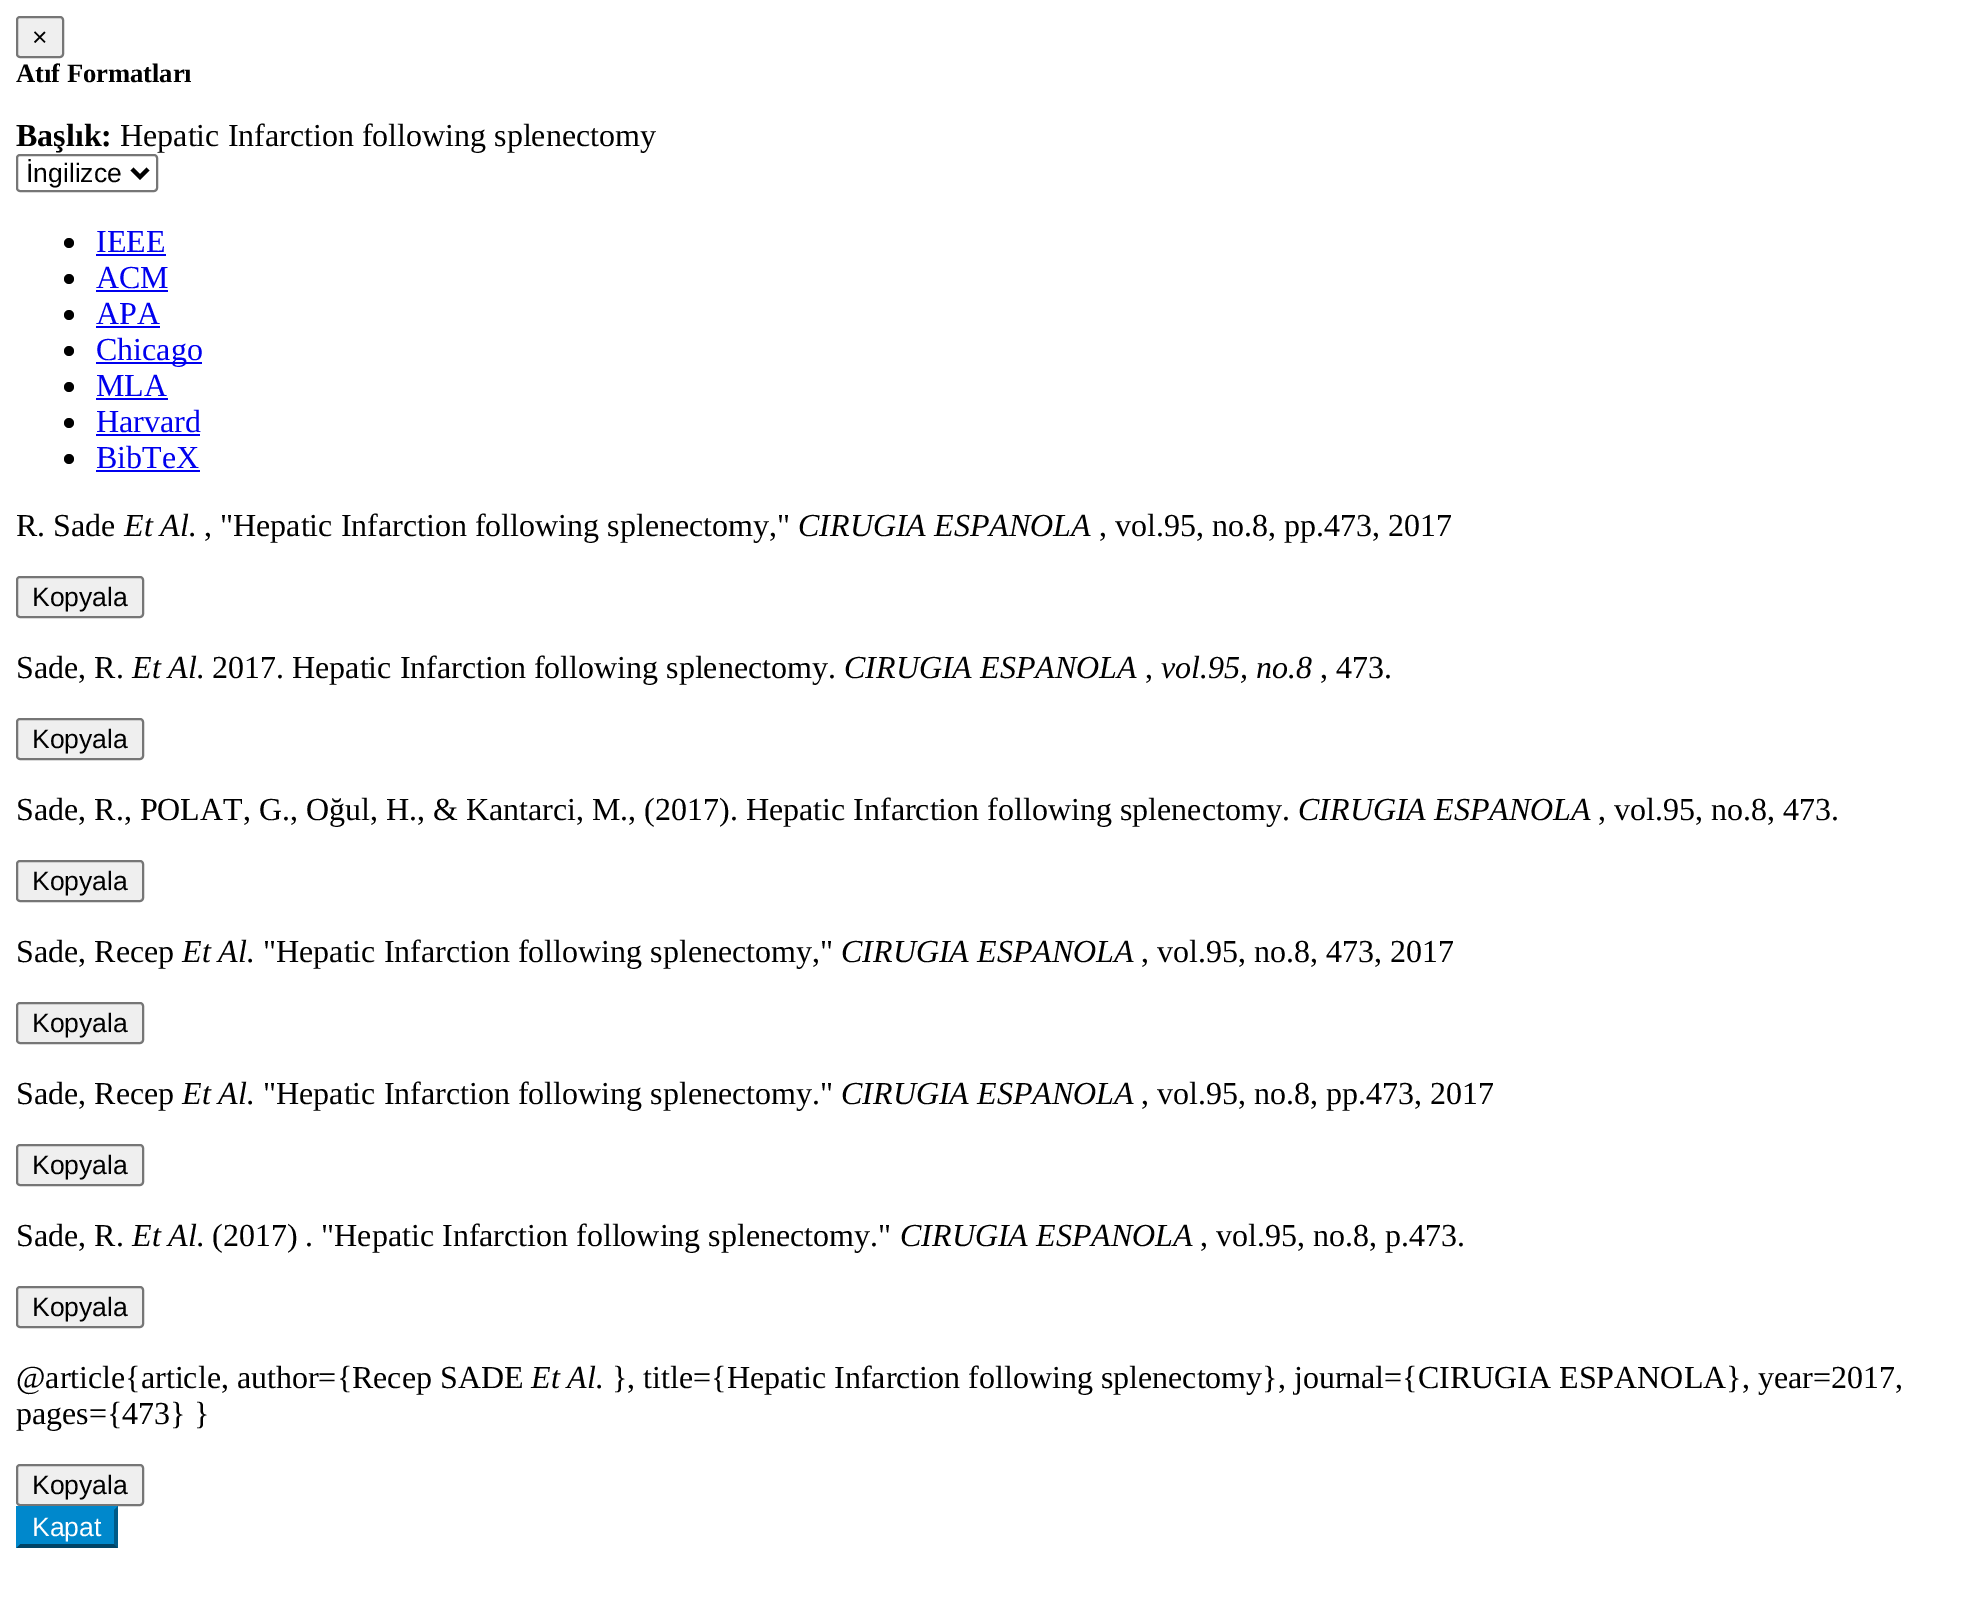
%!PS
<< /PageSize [1961 1602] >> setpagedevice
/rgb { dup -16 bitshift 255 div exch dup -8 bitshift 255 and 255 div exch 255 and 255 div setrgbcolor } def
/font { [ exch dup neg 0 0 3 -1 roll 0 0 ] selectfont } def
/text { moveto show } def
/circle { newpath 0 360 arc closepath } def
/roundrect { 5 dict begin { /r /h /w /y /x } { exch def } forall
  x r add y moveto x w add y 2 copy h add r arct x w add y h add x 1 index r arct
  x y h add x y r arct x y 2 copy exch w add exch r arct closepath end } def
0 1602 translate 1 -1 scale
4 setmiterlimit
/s1 { /LiberationSans-Regular 26.5 font 16#000000 rgb } def
/s2 { /LiberationSerif-Bold 26.5 font 16#000000 rgb } def
/s3 { /LiberationSerif-Bold 32 font 16#000000 rgb } def
/s4 { /LiberationSerif-Regular 32 font 16#000000 rgb } def
/s5 { /LiberationSerif-Regular 32 font 16#0000EE rgb } def
/s6 { /LiberationSerif-Italic 32 font 16#000000 rgb } def
/s7 { /LiberationSans-Regular 26.5 font 16#FFFFFF rgb } def
16#FFFFFF rgb
0 0 1961 1602 rectfill
16#EFEFEF rgb
17 17 46 40 3 roundrect gsave fill grestore
16#767676 rgb
2 setlinewidth
stroke
s1
(×) 32 46 text
s2
(Atıf Formatları) 16 82 text
s3
(Başlık:) 16 146 text
s4
(Hepatic Infarction following splenectomy) 120 146 text
16#767676 rgb
17 155 140 36 3 roundrect stroke
16#000000 rgb
4 setlinewidth
132 169 moveto 140 177 lineto 148 169 lineto stroke
s1
(İngilizce) 26 182 text
69 243 5 circle fill
s5
(IEEE) 96 252 text
96 254 70 2 rectfill
16#000000 rgb
69 279 5 circle fill
s5
(ACM) 96 288 text
96 290 72 2 rectfill
16#000000 rgb
69 315 5 circle fill
s5
(APA) 96 324 text
96 326 64 2 rectfill
16#000000 rgb
69 351 5 circle fill
16#0000EE rgb
96 362 106 2 rectfill
(Chicago) 96 360 text
16#000000 rgb
69 387 5 circle fill
s5
(MLA) 96 396 text
96 398 72 2 rectfill
16#000000 rgb
69 423 5 circle fill
s5
(Harvard) 96 432 text
96 434 104 2 rectfill
16#000000 rgb
69 459 5 circle fill
s5
(BibTeX) 96 468 text
96 470 104 2 rectfill
s4
(R. Sade) 16 536 text
s6
(Et Al.) 124 536 text
s4
(, "Hepatic Infarction following splenectomy,") 204 536 text
s6
(CIRUGIA ESPANOLA) 798 536 text
s4
(, vol.95, no.8, pp.473, 2017) 1099 536 text
16#EFEFEF rgb
17 577 126 40 3 roundrect gsave fill grestore
16#767676 rgb
2 setlinewidth
stroke
s1
(Kopyala) 32 606 text
s4
(Sade, R.) 16 678 text
s6
(Et Al.) 132 678 text
s4
(2017. Hepatic Infarction following splenectomy.) 212 678 text
s6
(CIRUGIA ESPANOLA) 844 678 text
s4
(,) 1145 678 text
s6
(vol.95, no.8) 1161 678 text
s4
(, 473.) 1320 678 text
16#EFEFEF rgb
17 719 126 40 3 roundrect gsave fill grestore
16#767676 rgb
stroke
s1
(Kopyala) 32 748 text
s4
(Sade, R., POLAT, G., Oğul, H., & Kantarci, M., \(2017\). Hepatic Infarction following splenectomy.) 16 820 text
s6
(CIRUGIA ESPANOLA) 1298 820 text
s4
(, vol.95, no.8, 473.) 1598 820 text
16#EFEFEF rgb
17 861 126 40 3 roundrect gsave fill grestore
16#767676 rgb
stroke
s1
(Kopyala) 32 890 text
s4
(Sade, Recep) 16 962 text
s6
(Et Al.) 182 962 text
s4
("Hepatic Infarction following splenectomy,") 263 962 text
s6
(CIRUGIA ESPANOLA) 841 962 text
s4
(, vol.95, no.8, 473, 2017) 1141 962 text
16#EFEFEF rgb
17 1003 126 40 3 roundrect gsave fill grestore
16#767676 rgb
stroke
s1
(Kopyala) 32 1032 text
s4
(Sade, Recep) 16 1104 text
s6
(Et Al.) 182 1104 text
s4
("Hepatic Infarction following splenectomy.") 263 1104 text
s6
(CIRUGIA ESPANOLA) 841 1104 text
s4
(, vol.95, no.8, pp.473, 2017) 1141 1104 text
16#EFEFEF rgb
17 1145 126 40 3 roundrect gsave fill grestore
16#767676 rgb
stroke
s1
(Kopyala) 32 1174 text
s4
(Sade, R.) 16 1246 text
s6
(Et Al.) 132 1246 text
s4
(\(2017\) . "Hepatic Infarction following splenectomy.") 212 1246 text
s6
(CIRUGIA ESPANOLA) 900 1246 text
s4
(, vol.95, no.8, p.473.) 1200 1246 text
16#EFEFEF rgb
17 1287 126 40 3 roundrect gsave fill grestore
16#767676 rgb
stroke
s1
(Kopyala) 32 1316 text
s4
(@article{article, author={Recep SADE) 16 1388 text
s6
(Et Al.) 531 1388 text
s4
(}, title={Hepatic Infarction following splenectomy}, journal={CIRUGIA ESPANOLA}, year=2017,) 612 1388 text
(pages={473} }) 16 1424 text
16#EFEFEF rgb
17 1465 126 40 3 roundrect gsave fill grestore
16#767676 rgb
stroke
s1
(Kopyala) 32 1494 text
16#0088CC rgb
16 1506 102 42 rectfill
16#005B88 rgb
118 1506 moveto 118 1548 lineto 114 1544 lineto 114 1510 lineto closepath fill
16#004466 rgb
118 1548 moveto 16 1548 lineto 20 1544 lineto 114 1544 lineto closepath fill
16#0088CC rgb
16 1548 moveto 16 1506 lineto 20 1510 lineto 20 1544 lineto closepath fill
s7
(Kapat) 32 1536 text
showpage
